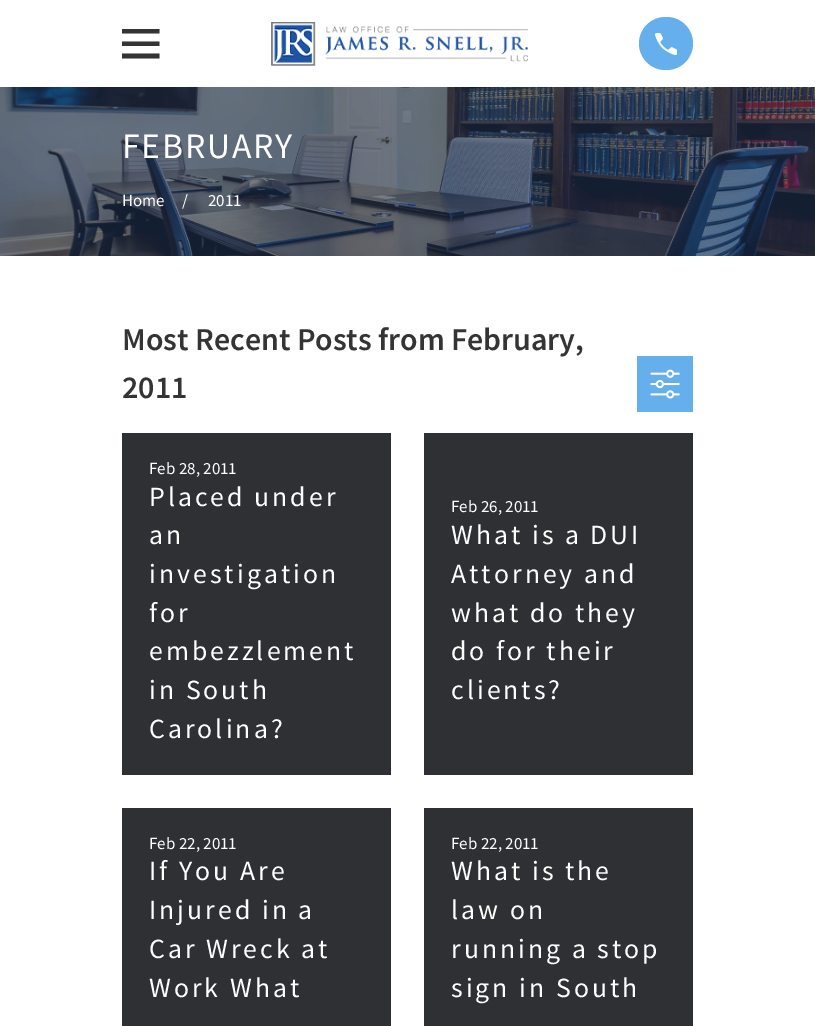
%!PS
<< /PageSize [815 1026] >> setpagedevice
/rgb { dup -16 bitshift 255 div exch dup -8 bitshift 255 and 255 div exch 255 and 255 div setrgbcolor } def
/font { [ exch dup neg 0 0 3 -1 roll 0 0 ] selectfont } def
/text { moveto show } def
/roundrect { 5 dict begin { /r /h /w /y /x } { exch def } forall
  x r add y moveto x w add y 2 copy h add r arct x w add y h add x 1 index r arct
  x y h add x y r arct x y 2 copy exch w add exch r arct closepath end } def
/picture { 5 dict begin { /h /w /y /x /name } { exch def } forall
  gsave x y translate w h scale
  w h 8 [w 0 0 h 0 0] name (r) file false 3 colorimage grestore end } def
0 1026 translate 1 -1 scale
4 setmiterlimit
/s1 { /SourceSansPro-Regular 17 font 16#FFFFFF rgb } def
/s2 { /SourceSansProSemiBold-SemiBold 31.9 font 16#343434 rgb } def
16#FFFFFF rgb
0 0 815 1026 rectfill
16#343434 rgb
122 29 moveto 122 33.5 lineto 159.5 33.5 lineto 159.5 29 lineto closepath 122 41.5 moveto 122 46 lineto 159.5 46 lineto 159.5 41.5 lineto closepath 122 53.5 moveto 122 58.5 lineto 159.5 58.5 lineto 159.5 53.5 lineto closepath fill
(pic1.raw) 271 22 257 44 picture
16#66AFED rgb
639 17 54 53 26.5 roundrect fill
(pic2.raw) 655 33 22 22 picture
16#1F3351 rgb
0 87 815 169 rectfill
(pic3.raw) 0 87 815 169 picture
/SourceSansPro-Regular 35.75 font
16#FFFFFF rgb
122 158 moveto 1.75 0 (FEBRUARY) ashow
s1
(Home) 122 206 text
(/) 182 206 text
(2011) 208 206 text
s2
(Most Recent Posts from February,) 122 350 text
(2011) 122 398 text
16#66AFED rgb
637 356 56 56 rectfill
(pic4.raw) 650 369 30 30 picture
16#2F3033 rgb
122 433 269 342 rectfill
s1
(Feb 28, 2011) 149 474 text
/SourceSansPro-Regular 27.75 font
149 506 moveto 3 0 (Placed under) ashow
149 544 moveto 3 0 (an) ashow
149 583 moveto 3 0 (investigation) ashow
149 622 moveto 3 0 (for) ashow
149 660 moveto 3 0 (embezzlement) ashow
149 699 moveto 3 0 (in South) ashow
149 738 moveto 3 0 (Carolina?) ashow
16#2F3033 rgb
424 433 269 342 rectfill
s1
(Feb 26, 2011) 451 512 text
/SourceSansPro-Regular 27.75 font
451 544 moveto 3 0 (What is a DUI) ashow
451 583 moveto 3 0 (Attorney and) ashow
451 622 moveto 3 0 (what do they) ashow
451 660 moveto 3 0 (do for their) ashow
451 699 moveto 3 0 (clients?) ashow
16#2F3033 rgb
122 808 269 218 rectfill
s1
(Feb 22, 2011) 149 849 text
/SourceSansPro-Regular 27.75 font
149 880 moveto 3 0 (If You Are) ashow
149 919 moveto 3 0 (Injured in a) ashow
149 958 moveto 3 0 (Car Wreck at) ashow
149 997 moveto 3 0 (Work What) ashow
16#2F3033 rgb
424 808 269 218 rectfill
s1
(Feb 22, 2011) 451 849 text
/SourceSansPro-Regular 27.75 font
451 880 moveto 3 0 (What is the) ashow
451 919 moveto 3 0 (law on) ashow
451 958 moveto 3 0 (running a stop) ashow
451 997 moveto 3 0 (sign in South) ashow
showpage
